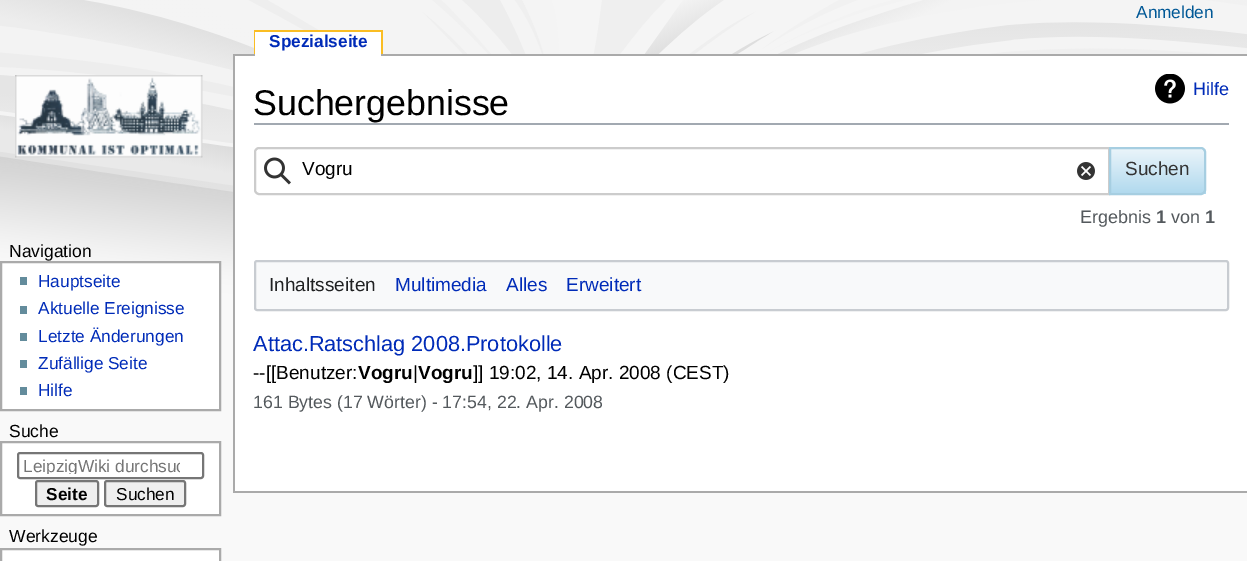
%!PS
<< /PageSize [1247 561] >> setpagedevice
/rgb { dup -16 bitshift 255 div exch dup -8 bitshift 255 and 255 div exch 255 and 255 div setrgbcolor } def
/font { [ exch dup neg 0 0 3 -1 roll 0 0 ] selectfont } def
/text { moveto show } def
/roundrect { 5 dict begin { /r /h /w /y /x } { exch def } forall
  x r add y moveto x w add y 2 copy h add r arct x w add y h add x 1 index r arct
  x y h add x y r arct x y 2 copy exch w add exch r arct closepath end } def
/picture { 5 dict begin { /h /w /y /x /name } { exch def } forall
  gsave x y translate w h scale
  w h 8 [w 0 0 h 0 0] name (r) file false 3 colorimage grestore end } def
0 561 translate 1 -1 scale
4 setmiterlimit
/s1 { /LiberationSans-Regular 17.25 font 16#005896 rgb } def
/s2 { /LiberationSans-Bold 17.25 font 16#002BB8 rgb } def
/s3 { /LiberationSans-Regular 17.5 font 16#000000 rgb } def
/s4 { /LiberationSans-Regular 17.25 font 16#002BB8 rgb } def
/s5 { /LiberationSans-Regular 17.25 font 16#757575 rgb } def
/s6 { /LiberationSans-Bold 17.25 font 16#000000 rgb } def
/s7 { /LiberationSans-Regular 17.25 font 16#000000 rgb } def
/s8 { /LiberationSans-Regular 35.75 font 16#000000 rgb } def
/s9 { /LiberationSans-Regular 18 font 16#002BB8 rgb } def
/s10 { /LiberationSans-Regular 19 font 16#000000 rgb } def
/s11 { /LiberationSans-Regular 19 font 16#333333 rgb } def
/s12 { /LiberationSans-Regular 18 font 16#54595D rgb } def
/s13 { /LiberationSans-Bold 18 font 16#54595D rgb } def
/s14 { /LiberationSans-Regular 19 font 16#202122 rgb } def
/s15 { /LiberationSans-Regular 19 font 16#002BB8 rgb } def
/s16 { /LiberationSans-Regular 21.75 font 16#002BB8 rgb } def
/s17 { /LiberationSans-Bold 19 font 16#000000 rgb } def
/s18 { /LiberationSans-Regular 17.75 font 16#54595D rgb } def
16#F9F9F9 rgb
0 0 1247 561 rectfill
(pic1.raw) 0 0 1247 315 picture
s1
(Anmelden) 1136 18 text
16#FABD23 rgb
254 30 129 2 rectfill
254 30 2 24 rectfill
16#AAAAAA rgb
233 54 1014 2 rectfill
16#FFFFFF rgb
255 32 126 24 rectfill
s2
(Spezialseite) 269 47 text
16#FABD23 rgb
381 30 2 24 rectfill
(pic2.raw) 15 75 188 83 picture
s3
(Navigation) 9 257 text
16#FFFFFF rgb
1 262 moveto 220 262 lineto 220 410 lineto 1 410 lineto closepath gsave fill grestore
16#AAAAAA rgb
2 setlinewidth
stroke
16#638C9C rgb
20 277 7 8 rectfill
s4
(Hauptseite) 38 287 text
16#638C9C rgb
20 306 7 8 rectfill
s4
(Aktuelle Ereignisse) 38 314 text
16#638C9C rgb
20 333 7 8 rectfill
s4
(Letzte Änderungen) 38 342 text
16#638C9C rgb
20 360 7 8 rectfill
s4
(Zufällige Seite) 38 369 text
16#638C9C rgb
20 387 7 8 rectfill
s4
(Hilfe) 38 396 text
s3
(Suche) 9 437 text
16#FFFFFF rgb
1 442 moveto 220 442 lineto 220 515 lineto 1 515 lineto closepath gsave fill grestore
16#AAAAAA rgb
stroke
16#767676 rgb
18 453 185 25 2 roundrect stroke
gsave
23 456 157 18 rectclip
s5
(LeipzigWiki durchsuc) 23 472 text
grestore
16#EFEFEF rgb
36 481 62 25 2 roundrect gsave fill grestore
16#767676 rgb
stroke
s6
(Seite) 46 500 text
16#EFEFEF rgb
105 481 80 25 2 roundrect gsave fill grestore
16#767676 rgb
stroke
s7
(Suchen) 116 500 text
s3
(Werkzeuge) 9 542 text
16#FFFFFF rgb
1 549 moveto 220 549 lineto 220 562 lineto 1 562 lineto closepath gsave fill grestore
16#AAAAAA rgb
stroke
16#FFFFFF rgb
235 56 1012 435 rectfill
16#AAAAAA rgb
233 491 1014 2 rectfill
233 54 2 438 rectfill
16#A2A9B1 rgb
254 123 975 2 rectfill
s8
(Suchergebnisse) 253 115 text
(pic3.raw) 1155 74 30 30 picture
s9
(Hilfe) 1193 95 text
16#CCCCCC rgb
259 148 moveto 1109 148 lineto 1109 194 lineto 259 194 lineto 257 194 255 192 255 190 curveto 255 152 lineto 255 150 257 148 259 148 curveto closepath stroke
(pic4.raw) 264 157 27 28 picture
s10
(Vogru) 302 175 text
(pic5.raw) 1077 162 18 18 picture
gsave
1109 147 moveto 1201 147 lineto 1204 147 1206 149 1206 152 curveto 1206 190 lineto 1206 193 1204 195 1201 195 curveto 1109 195 lineto closepath clip newpath
gsave 1111 149 moveto 1206 149 lineto 1206 194 lineto 1111 194 lineto closepath clip newpath
<< /ShadingType 2 /ColorSpace /DeviceRGB /Coords [1157 149 1157 194] /Extend [true true] /Function << /FunctionType 2 /Domain [0 1] /C0 [0.918 0.957 0.98] /C1 [0.69 0.851 0.933] /N 1 >> >> shfill grestore
grestore
16#A6CEE1 rgb
1110 148 moveto 1201 148 lineto 1203 148 1205 150 1205 152 curveto 1205 190 lineto 1205 192 1203 194 1201 194 curveto 1110 194 lineto closepath stroke
s11
(Suchen) 1125 175 text
s12
(Ergebnis) 1080 223 text
s13
(1) 1156 223 text
s12
(von) 1171 223 text
s13
(1) 1205 223 text
16#F8F9FA rgb
255 261 973 49 2 roundrect gsave fill grestore
16#C8CCD1 rgb
stroke
s14
(Inhaltsseiten) 269 291 text
s15
(Multimedia) 395 291 text
(Alles) 506 291 text
(Erweitert) 566 291 text
s16
(Attac.Ratschlag 2008.Protokolle) 253 351 text
s10
(--[[Benutzer:) 253 379 text
s17
(Vogru) 358 379 text
s10
(|) 413 379 text
s17
(Vogru) 418 379 text
s10
(]] 19:02, 14. Apr. 2008 \(CEST\)) 473 379 text
s18
(161 Bytes \(17 Wörter\) - 17:54, 22. Apr. 2008) 253 408 text
showpage
